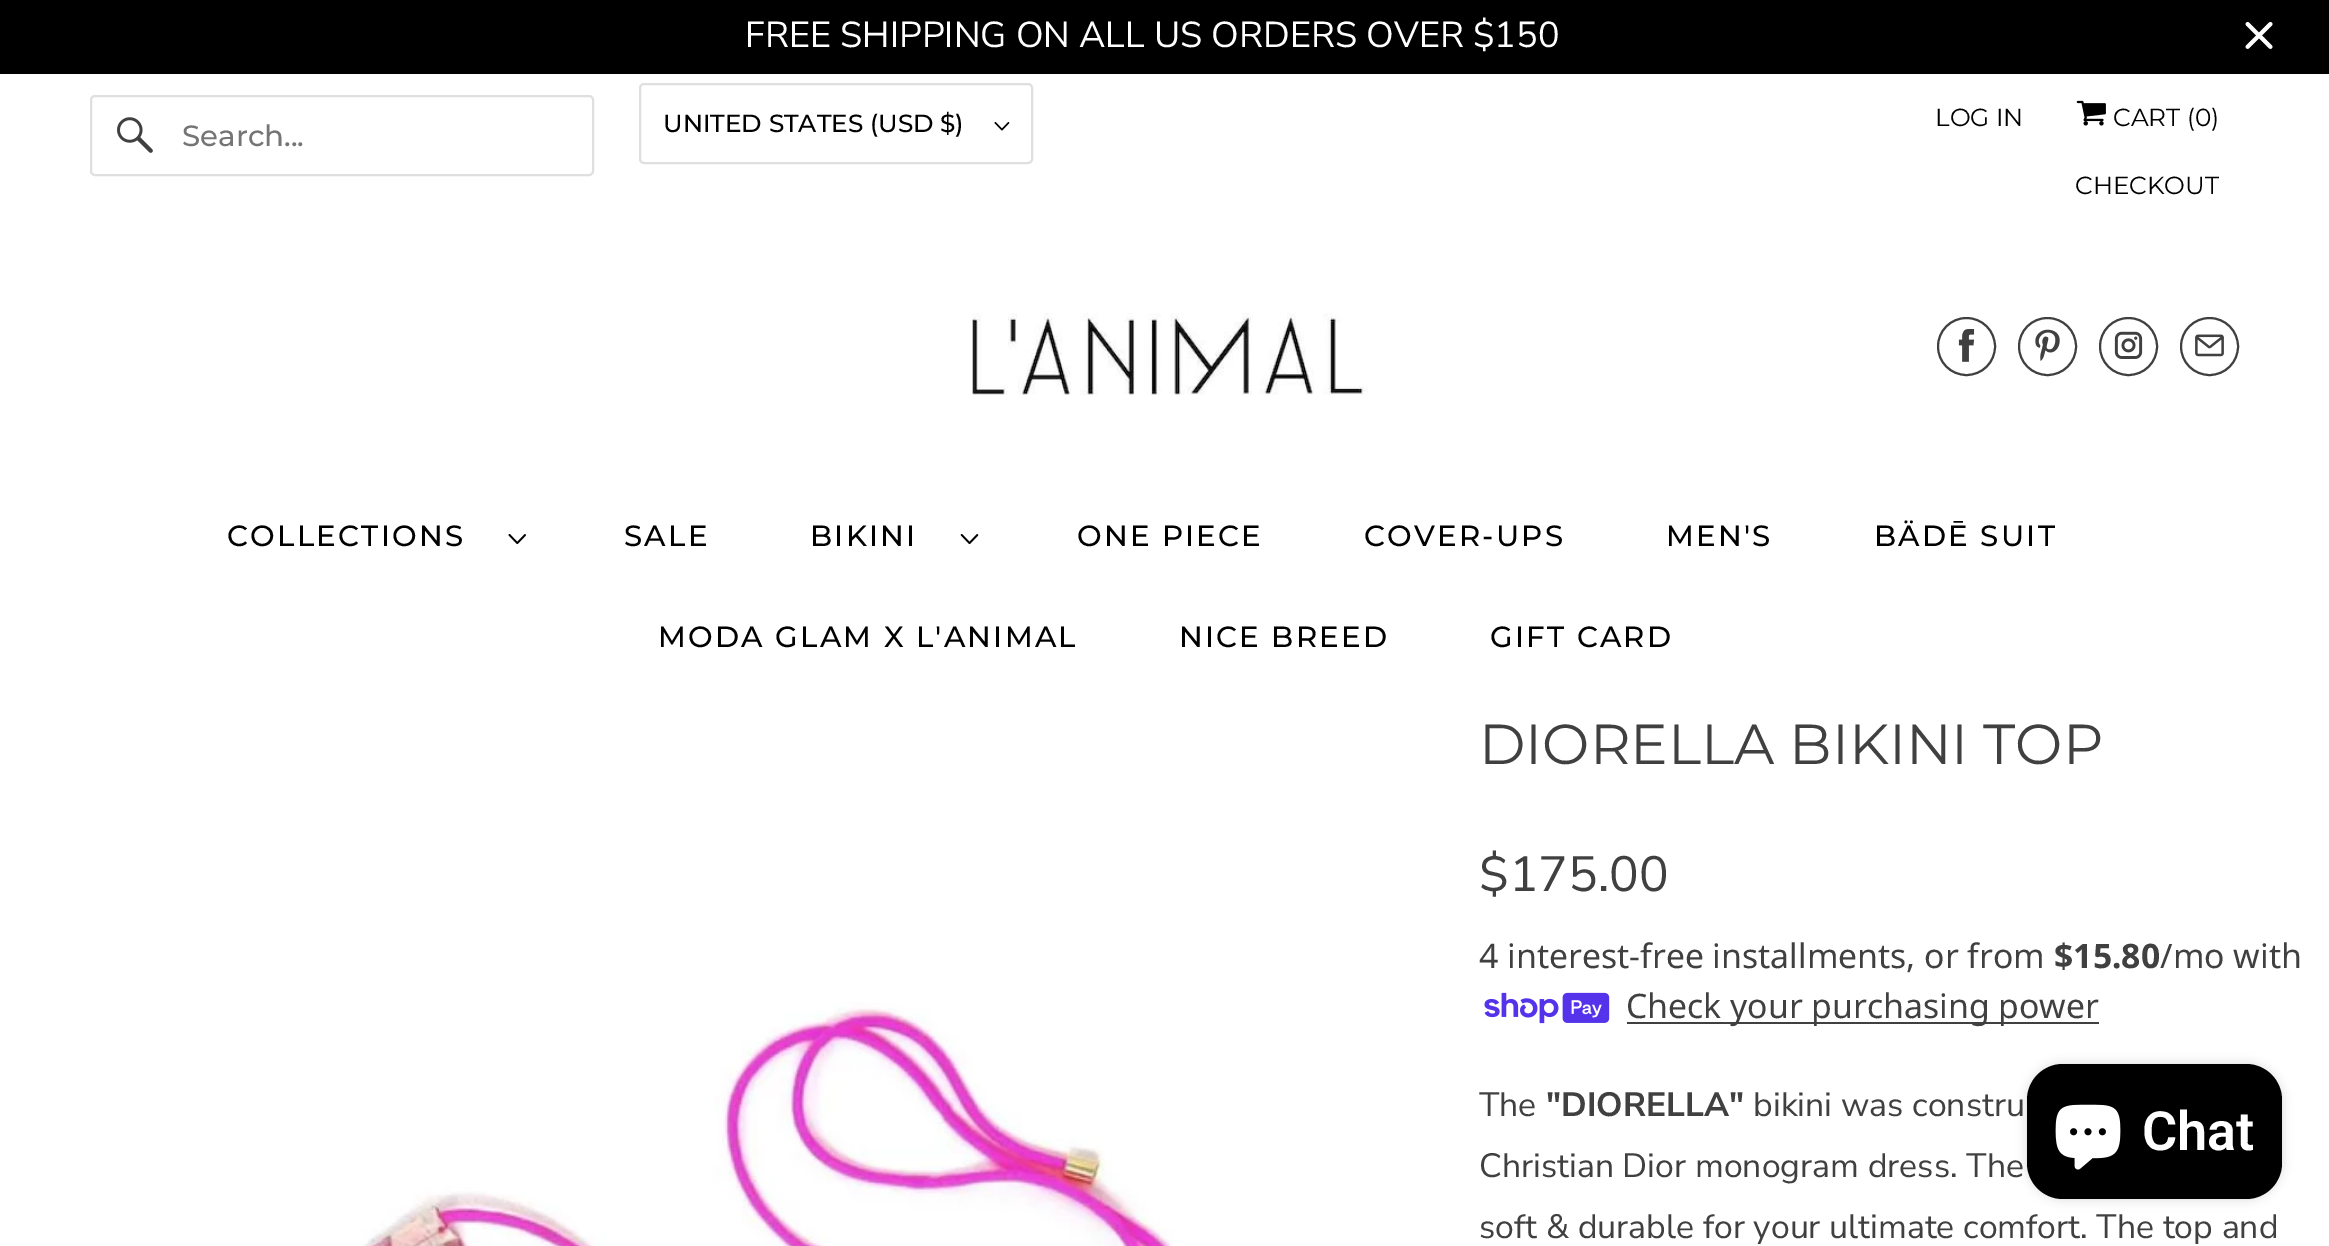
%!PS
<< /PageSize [2329 1246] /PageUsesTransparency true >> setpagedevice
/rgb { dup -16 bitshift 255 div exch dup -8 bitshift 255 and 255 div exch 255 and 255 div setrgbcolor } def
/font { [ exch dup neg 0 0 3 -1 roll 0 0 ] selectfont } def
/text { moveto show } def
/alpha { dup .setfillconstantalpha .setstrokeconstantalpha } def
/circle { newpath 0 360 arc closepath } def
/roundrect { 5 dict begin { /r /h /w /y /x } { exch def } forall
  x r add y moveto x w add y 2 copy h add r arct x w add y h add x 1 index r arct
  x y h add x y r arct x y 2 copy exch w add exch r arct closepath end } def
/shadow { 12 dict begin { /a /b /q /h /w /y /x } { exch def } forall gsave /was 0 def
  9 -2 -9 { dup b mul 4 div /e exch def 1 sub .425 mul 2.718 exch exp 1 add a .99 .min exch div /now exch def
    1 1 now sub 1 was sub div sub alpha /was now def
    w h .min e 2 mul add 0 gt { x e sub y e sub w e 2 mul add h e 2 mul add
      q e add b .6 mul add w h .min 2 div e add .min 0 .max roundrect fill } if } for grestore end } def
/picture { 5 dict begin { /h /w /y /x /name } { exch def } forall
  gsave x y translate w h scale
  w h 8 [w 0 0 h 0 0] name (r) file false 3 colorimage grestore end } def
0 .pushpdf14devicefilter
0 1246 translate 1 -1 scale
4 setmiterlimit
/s1 { /NunitoSans-Regular 36 font 16#FFFFFF rgb } def
/s2 { /Montserrat-Medium 29.25 font 16#757575 rgb } def
/s3 { /Montserrat-Medium 24.75 font 16#000000 rgb } def
/s4 { /Montserrat-Regular 24.75 font 16#000000 rgb } def
/s5 { /Montserrat-Regular 56.25 font 16#404040 rgb } def
/s6 { /NunitoSans-Regular 49.5 font 16#404040 rgb } def
/s7 { /NotoSans-Regular 33.75 font 16#404040 rgb } def
/s8 { /NotoSans-Bold 33.75 font 16#404040 rgb } def
/s9 { /NunitoSans-Regular 33.75 font 16#404040 rgb } def
/s10 { /NunitoSans-Bold 33.75 font 16#404040 rgb } def
/s11 { /Roboto-SemiBold 54 font 16#FFFFFF rgb } def
16#FFFFFF rgb
0 0 2329 1246 rectfill
16#000000 rgb
0 0 2329 74 rectfill
s1
(FREE SHIPPING ON ALL US ORDERS OVER $150) 745 47 text
(pic1.raw) 2245 21 28 28 picture
16#DFDFDF rgb
2 setlinewidth
91 96 502 79 4 roundrect stroke
(pic2.raw) 117 117 36 36 picture
s2
(Search...) 182 146 text
16#DFDFDF rgb
640 84 392 79 4 roundrect stroke
s3
(UNITED STATES \(USD $\)) 663 132 text
(pic3.raw) 994 121 16 10 picture
s4
(LOG IN) 1935 126 text
(pic4.raw) 2076 100 30 26 picture
(CART \(0\)) 2113 126 text
(CHECKOUT) 2075 194 text
(pic5.raw) 972 313 396 82 picture
16#404040 rgb
1966.5 346.5 28.5 circle stroke
(pic6.raw) 1958 329 17 33 picture
2047.5 346.5 28.5 circle stroke
(pic7.raw) 2035 329 25 32 picture
2128.5 346.5 28.5 circle stroke
(pic8.raw) 2114 331 29 28 picture
2209.5 346.5 28.5 circle stroke
(pic9.raw) 2195 334 29 23 picture
/Montserrat-Medium 29.25 font
16#000000 rgb
227 546 moveto 2.25 0 (COLLECTIONS) ashow
(pic10.raw) 508 534 18 11 picture
624 546 moveto 2.25 0 (SALE) ashow
810 546 moveto 2.25 0 (BIKINI) ashow
(pic11.raw) 960 534 19 11 picture
1077 546 moveto 2.25 0 (ONE PIECE) ashow
1364 546 moveto 2.25 0 (COVER-UPS) ashow
1666 546 moveto 2.25 0 (MEN'S) ashow
1874 546 moveto 2.25 0 (BÄDĒ SUIT) ashow
658 647 moveto 2.25 0 (MODA GLAM X L'ANIMAL) ashow
1179 647 moveto 2.25 0 (NICE BREED) ashow
1490 647 moveto 2.25 0 (GIFT CARD) ashow
(pic12.raw) 361 1002 812 244 picture
s5
(DIORELLA BIKINI TOP) 1479 764 text
s6
($175.00) 1479 891 text
s7
(4 interest-free installments, or from) 1479 968 text
s8
($15.80) 2054 968 text
s7
(/mo with) 2160 968 text
(pic13.raw) 1484 992 126 32 picture
1627 1022 472 2 rectfill
(Check your purchasing power) 1626 1018 text
s9
(The) 1479 1116 text
s10
("DIORELLA") 1546 1116 text
s9
(bikini was constru) 1753 1116 text
(Christian Dior monogram dress. The) 1479 1177 text
(soft & durable for your ultimate comfort. The top and) 1479 1238 text
16#000000 rgb
2027 1064 255 135 36 5.5 0.15 shadow
2027 1064 255 135 36 roundrect fill
(pic14.raw) 2055 1104 66 66 picture
s11
(Chat) 2142 1150 text
.poppdf14devicefilter showpage
